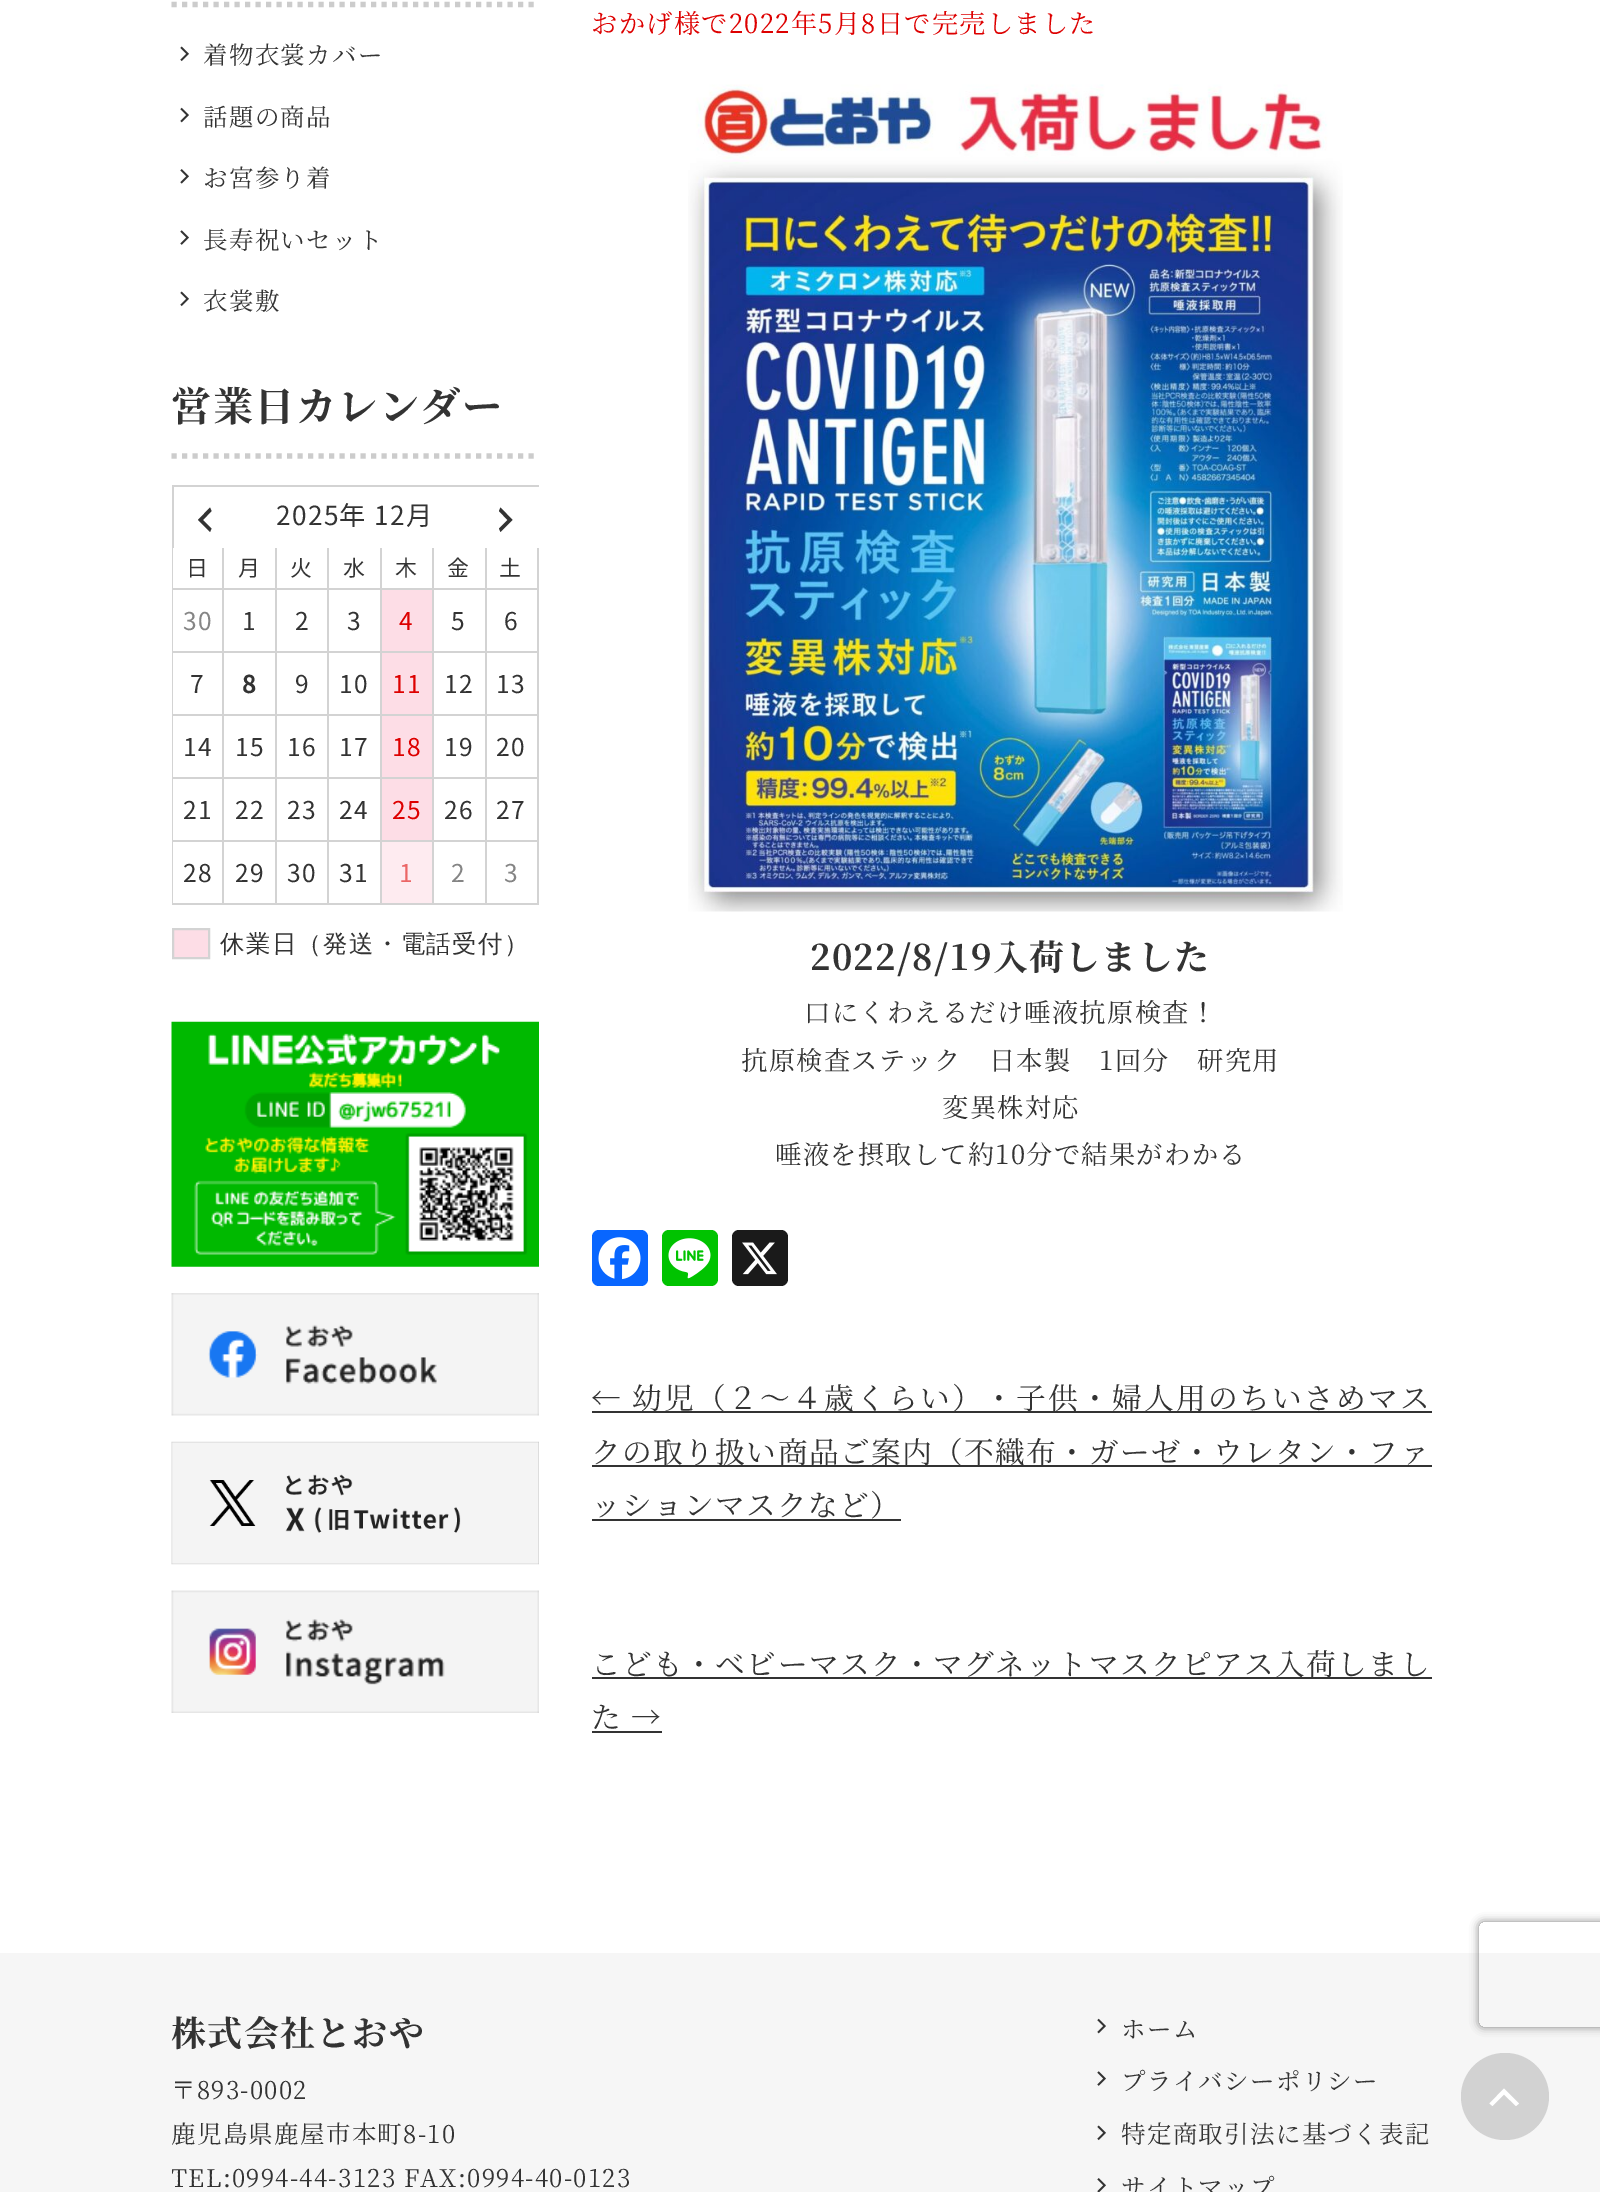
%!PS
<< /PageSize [1600 2192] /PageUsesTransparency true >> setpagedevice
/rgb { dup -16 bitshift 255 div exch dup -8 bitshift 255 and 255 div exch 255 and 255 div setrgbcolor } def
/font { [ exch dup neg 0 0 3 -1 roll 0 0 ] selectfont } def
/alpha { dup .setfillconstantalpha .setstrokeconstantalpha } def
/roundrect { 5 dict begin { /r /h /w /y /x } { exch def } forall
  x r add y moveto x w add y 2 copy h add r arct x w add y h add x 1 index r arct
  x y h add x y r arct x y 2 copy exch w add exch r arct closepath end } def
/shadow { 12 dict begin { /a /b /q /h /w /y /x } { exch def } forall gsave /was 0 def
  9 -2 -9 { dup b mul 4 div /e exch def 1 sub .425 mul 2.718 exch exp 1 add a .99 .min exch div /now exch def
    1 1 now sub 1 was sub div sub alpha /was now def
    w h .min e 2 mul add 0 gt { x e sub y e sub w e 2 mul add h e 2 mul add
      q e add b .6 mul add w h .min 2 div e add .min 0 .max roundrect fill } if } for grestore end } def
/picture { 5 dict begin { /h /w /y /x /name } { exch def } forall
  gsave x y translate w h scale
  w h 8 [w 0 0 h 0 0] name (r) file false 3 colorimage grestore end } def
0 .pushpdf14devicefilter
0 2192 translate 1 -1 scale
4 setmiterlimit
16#FFFFFF rgb
0 0 1600 2192 rectfill
16#CCCCCC rgb
5.2 setlinewidth
[5.25 5.25] 0 setdash
171.5 4.5 moveto 539 4.5 lineto stroke
(pic1.raw) 180 46 9 16 picture
/NotoSerifCJKJP-Regular 24.5 font
16#333333 rgb
203 64 moveto 1.3 0 (着物衣裳カバー) ashow
(pic2.raw) 180 107 9 16 picture
203 126 moveto 1.3 0 (話題の商品) ashow
(pic3.raw) 180 169 9 15 picture
203 187 moveto 1.3 0 (お宮参り着) ashow
(pic4.raw) 180 230 9 15 picture
203 249 moveto 1.3 0 (長寿祝いセット) ashow
(pic1.raw) 180 291 9 16 picture
203 310 moveto 1.3 0 (衣裳敷) ashow
16#CCCCCC rgb
171.5 456 moveto 539 456 lineto stroke
/NotoSerifCJKJP-Bold 40.25 font
16#333333 rgb
171 421 moveto 1.3 0 (営業日カレンダー) ashow
16#D3D3D3 rgb
172 485 367 2 rectfill
172 903 367 2 rectfill
172 485 2 420 rectfill
16#333333 rgb
211.5 511 moveto 203 520 lineto 211.5 528.5 lineto 210 532 lineto 198 520 lineto 210 507.5 lineto closepath fill
/NotoSansCJKJP-Regular 26.25 font
276 525 moveto 1.3 0 (2025年 12月) ashow
499 528.5 moveto 507.5 520 lineto 499 511 lineto 500.5 507.5 lineto 512.5 520 lineto 500.5 532 lineto closepath fill
16#FFFFFF rgb
173 548 1 40 rectfill
16#D3D3D3 rgb
222 548 2 40 rectfill
/NotoSansCJKJP-Regular 22 font
16#333333 rgb
186 576 moveto 1.3 0 (日) ashow
16#D3D3D3 rgb
275 548 2 40 rectfill
16#333333 rgb
238 576 moveto 1.3 0 (月) ashow
16#D3D3D3 rgb
327 548 2 40 rectfill
16#333333 rgb
290 576 moveto 1.3 0 (火) ashow
16#D3D3D3 rgb
380 548 2 40 rectfill
16#333333 rgb
343 576 moveto 1.3 0 (水) ashow
16#D3D3D3 rgb
432 548 2 40 rectfill
16#333333 rgb
395 576 moveto 1.3 0 (木) ashow
16#D3D3D3 rgb
485 548 2 40 rectfill
16#333333 rgb
447 576 moveto 1.3 0 (金) ashow
16#D3D3D3 rgb
537 548 2 40 rectfill
16#333333 rgb
499 576 moveto 1.3 0 (土) ashow
16#FFFFFF rgb
173 590 1 61 rectfill
16#D3D3D3 rgb
173 588 366 2 rectfill
222 588 2 63 rectfill
/NotoSansCJKJP-Regular 24.5 font
16#858585 rgb
183 630 moveto 1.3 0 (30) ashow
16#D3D3D3 rgb
275 588 2 63 rectfill
16#333333 rgb
242 630 moveto 1.3 0 (1) ashow
16#D3D3D3 rgb
327 588 2 63 rectfill
16#333333 rgb
295 630 moveto 1.3 0 (2) ashow
16#D3D3D3 rgb
380 588 2 63 rectfill
16#333333 rgb
347 630 moveto 1.3 0 (3) ashow
16#D3D3D3 rgb
432 588 2 63 rectfill
16#FDDDE6 rgb
382 590 50 61 rectfill
16#DD0000 rgb
399 630 moveto 1.3 0 (4) ashow
16#D3D3D3 rgb
485 588 2 63 rectfill
16#333333 rgb
451 630 moveto 1.3 0 (5) ashow
16#D3D3D3 rgb
537 588 2 63 rectfill
16#333333 rgb
504 630 moveto 1.3 0 (6) ashow
16#FFFFFF rgb
173 653 1 61 rectfill
16#D3D3D3 rgb
173 651 366 2 rectfill
222 651 2 63 rectfill
16#333333 rgb
190 693 moveto 1.3 0 (7) ashow
16#D3D3D3 rgb
275 651 2 63 rectfill
/NotoSansCJKJP-Bold 24.5 font
16#333333 rgb
242 693 moveto 1.3 0 (8) ashow
16#D3D3D3 rgb
327 651 2 63 rectfill
/NotoSansCJKJP-Regular 24.5 font
16#333333 rgb
295 693 moveto 1.3 0 (9) ashow
16#D3D3D3 rgb
380 651 2 63 rectfill
16#333333 rgb
339 693 moveto 1.3 0 (10) ashow
16#D3D3D3 rgb
432 651 2 63 rectfill
16#FDDDE6 rgb
382 653 50 61 rectfill
16#DD0000 rgb
392 693 moveto 1.3 0 (11) ashow
16#D3D3D3 rgb
485 651 2 63 rectfill
16#333333 rgb
444 693 moveto 1.3 0 (12) ashow
16#D3D3D3 rgb
537 651 2 63 rectfill
16#333333 rgb
496 693 moveto 1.3 0 (13) ashow
16#FFFFFF rgb
173 716 1 61 rectfill
16#D3D3D3 rgb
173 714 366 2 rectfill
222 714 2 63 rectfill
16#333333 rgb
183 756 moveto 1.3 0 (14) ashow
16#D3D3D3 rgb
275 714 2 63 rectfill
16#333333 rgb
235 756 moveto 1.3 0 (15) ashow
16#D3D3D3 rgb
327 714 2 63 rectfill
16#333333 rgb
287 756 moveto 1.3 0 (16) ashow
16#D3D3D3 rgb
380 714 2 63 rectfill
16#333333 rgb
339 756 moveto 1.3 0 (17) ashow
16#D3D3D3 rgb
432 714 2 63 rectfill
16#FDDDE6 rgb
382 716 50 61 rectfill
16#DD0000 rgb
392 756 moveto 1.3 0 (18) ashow
16#D3D3D3 rgb
485 714 2 63 rectfill
16#333333 rgb
444 756 moveto 1.3 0 (19) ashow
16#D3D3D3 rgb
537 714 2 63 rectfill
16#333333 rgb
496 756 moveto 1.3 0 (20) ashow
16#FFFFFF rgb
173 779 1 61 rectfill
16#D3D3D3 rgb
173 777 366 2 rectfill
222 777 2 63 rectfill
16#333333 rgb
183 819 moveto 1.3 0 (21) ashow
16#D3D3D3 rgb
275 777 2 63 rectfill
16#333333 rgb
235 819 moveto 1.3 0 (22) ashow
16#D3D3D3 rgb
327 777 2 63 rectfill
16#333333 rgb
287 819 moveto 1.3 0 (23) ashow
16#D3D3D3 rgb
380 777 2 63 rectfill
16#333333 rgb
339 819 moveto 1.3 0 (24) ashow
16#D3D3D3 rgb
432 777 2 63 rectfill
16#FDDDE6 rgb
382 779 50 61 rectfill
16#DD0000 rgb
392 819 moveto 1.3 0 (25) ashow
16#D3D3D3 rgb
485 777 2 63 rectfill
16#333333 rgb
444 819 moveto 1.3 0 (26) ashow
16#D3D3D3 rgb
537 777 2 63 rectfill
16#333333 rgb
496 819 moveto 1.3 0 (27) ashow
16#FFFFFF rgb
173 842 1 61 rectfill
16#D3D3D3 rgb
173 840 366 2 rectfill
222 840 2 63 rectfill
16#333333 rgb
183 882 moveto 1.3 0 (28) ashow
16#D3D3D3 rgb
275 840 2 63 rectfill
16#333333 rgb
235 882 moveto 1.3 0 (29) ashow
16#D3D3D3 rgb
327 840 2 63 rectfill
16#333333 rgb
287 882 moveto 1.3 0 (30) ashow
16#D3D3D3 rgb
380 840 2 63 rectfill
16#333333 rgb
339 882 moveto 1.3 0 (31) ashow
16#D3D3D3 rgb
432 840 2 63 rectfill
16#FEEBF0 rgb
382 842 50 61 rectfill
16#EB6666 rgb
399 882 moveto 1.3 0 (1) ashow
16#D3D3D3 rgb
485 840 2 63 rectfill
16#858585 rgb
451 882 moveto 1.3 0 (2) ashow
16#D3D3D3 rgb
537 840 2 63 rectfill
16#858585 rgb
504 882 moveto 1.3 0 (3) ashow
16#FDDDE6 rgb
173 929 moveto 209 929 lineto 209 958 lineto 173 958 lineto closepath gsave fill grestore
16#D3D3D3 rgb
2 setlinewidth
[] 0 setdash
stroke
/WenQuanYiZenHei-Medium 24.5 font
16#333333 rgb
220 952 moveto 1.3 0 (休業日（発送・電話受付）) ashow
(pic5.raw) 171 1021 368 246 picture
(pic6.raw) 171 1293 368 123 picture
(pic7.raw) 171 1441 368 124 picture
(pic8.raw) 171 1590 368 123 picture
/NotoSerifCJKJP-Regular 26.25 font
16#DD0000 rgb
591 33 moveto 1.3 0 (おかげ様で2022年5月8日で完売しました) ashow
(pic9.raw) 688 84 655 828 picture
/NotoSerifCJKJP-Bold 35 font
16#333333 rgb
810 970 moveto 1.3 0 (2022/8/19入荷しました) ashow
/NotoSerifCJKJP-Regular 26.25 font
804 1022 moveto 1.3 0 (口にくわえるだけ唾液抗原検査！) ashow
741 1070 moveto 1.3 0 (抗原検査ステック　日本製　1回分　研究用) ashow
942 1117 moveto 1.3 0 (変異株対応) ashow
775 1164 moveto 1.3 0 (唾液を摂取して約10分で結果がわかる) ashow
16#0866FF rgb
592 1230 56 56 7 roundrect fill
(pic10.raw) 598 1237 43 43 picture
16#00C300 rgb
662 1230 56 56 7 roundrect fill
(pic11.raw) 668 1238 43 41 picture
16#1A1A1A rgb
732 1230 56 56 7 roundrect fill
(pic12.raw) 742 1242 35 33 picture
/NotoSerifCJKJP-Regular 29.75 font
16#333333 rgb
591 1409 moveto 1.3 0 (←) ashow
592 1411 840 2 rectfill
632 1409 moveto 2.25 0 (幼児（２～４歳くらい）・子供・婦人用のちいさめマス) ashow
592 1465 840 2 rectfill
591 1463 moveto 1.35 0 (クの取り扱い商品ご案内（不織布・ガーゼ・ウレタン・ファ) ashow
591 1516 moveto 1.3 0 (ッションマスクなど）) ashow
592 1519 309 2 rectfill
592 1677 840 2 rectfill
591 1675 moveto 1.35 0 (こども・ベビーマスク・マグネットマスクピアス入荷しまし) ashow
591 1728 moveto 1.3 0 (た →) ashow
592 1731 70 2 rectfill
16#F6F6F6 rgb
0 1953 1600 239 rectfill
/NotoSerifCJKJP-Bold 35 font
16#333333 rgb
171 2046 moveto 1.3 0 (株式会社とおや) ashow
/NotoSerifCJKJP-Regular 24.5 font
171 2099 moveto 1.3 0 (〒893-0002) ashow
171 2143 moveto 1.3 0 (鹿児島県鹿屋市本町8-10) ashow
gsave
172 2006 1312 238 rectclip
171 2187 moveto 1.3 0 (TEL:0994-44-3123 FAX:0994-40-0123) ashow
grestore
(pic13.raw) 1097 2018 9 16 picture
1121 2038 moveto 1.3 0 (ホーム) ashow
(pic14.raw) 1097 2071 9 15 picture
1121 2090 moveto 1.3 0 (プライバシーポリシー) ashow
(pic15.raw) 1097 2125 9 16 picture
1121 2143 moveto 1.3 0 (特定商取引法に基づく表記) ashow
(pic16.raw) 1097 2178 9 14 picture
1121 2196 moveto 1.3 0 (サイトマップ) ashow
16#D2D2D2 rgb
1461 2053 88 87 43.5 roundrect fill
16#FFFFFF rgb
1489.5 2103.5 moveto 1492.5 2106 lineto 1504 2094.5 lineto 1516 2106 lineto 1519 2103.5 lineto 1504 2088.5 lineto closepath fill
gsave
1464 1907 moveto 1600 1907 lineto 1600 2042 lineto 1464 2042 lineto closepath 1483 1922 moveto 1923 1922 lineto 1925 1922 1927 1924 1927 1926 curveto 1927 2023 lineto 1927 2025 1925 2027 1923 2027 curveto 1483 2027 lineto 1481 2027 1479 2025 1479 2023 curveto 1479 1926 lineto 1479 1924 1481 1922 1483 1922 curveto closepath eoclip newpath
16#808080 rgb
1479 1922 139 105 4 4.5 1 shadow
grestore
.poppdf14devicefilter showpage
